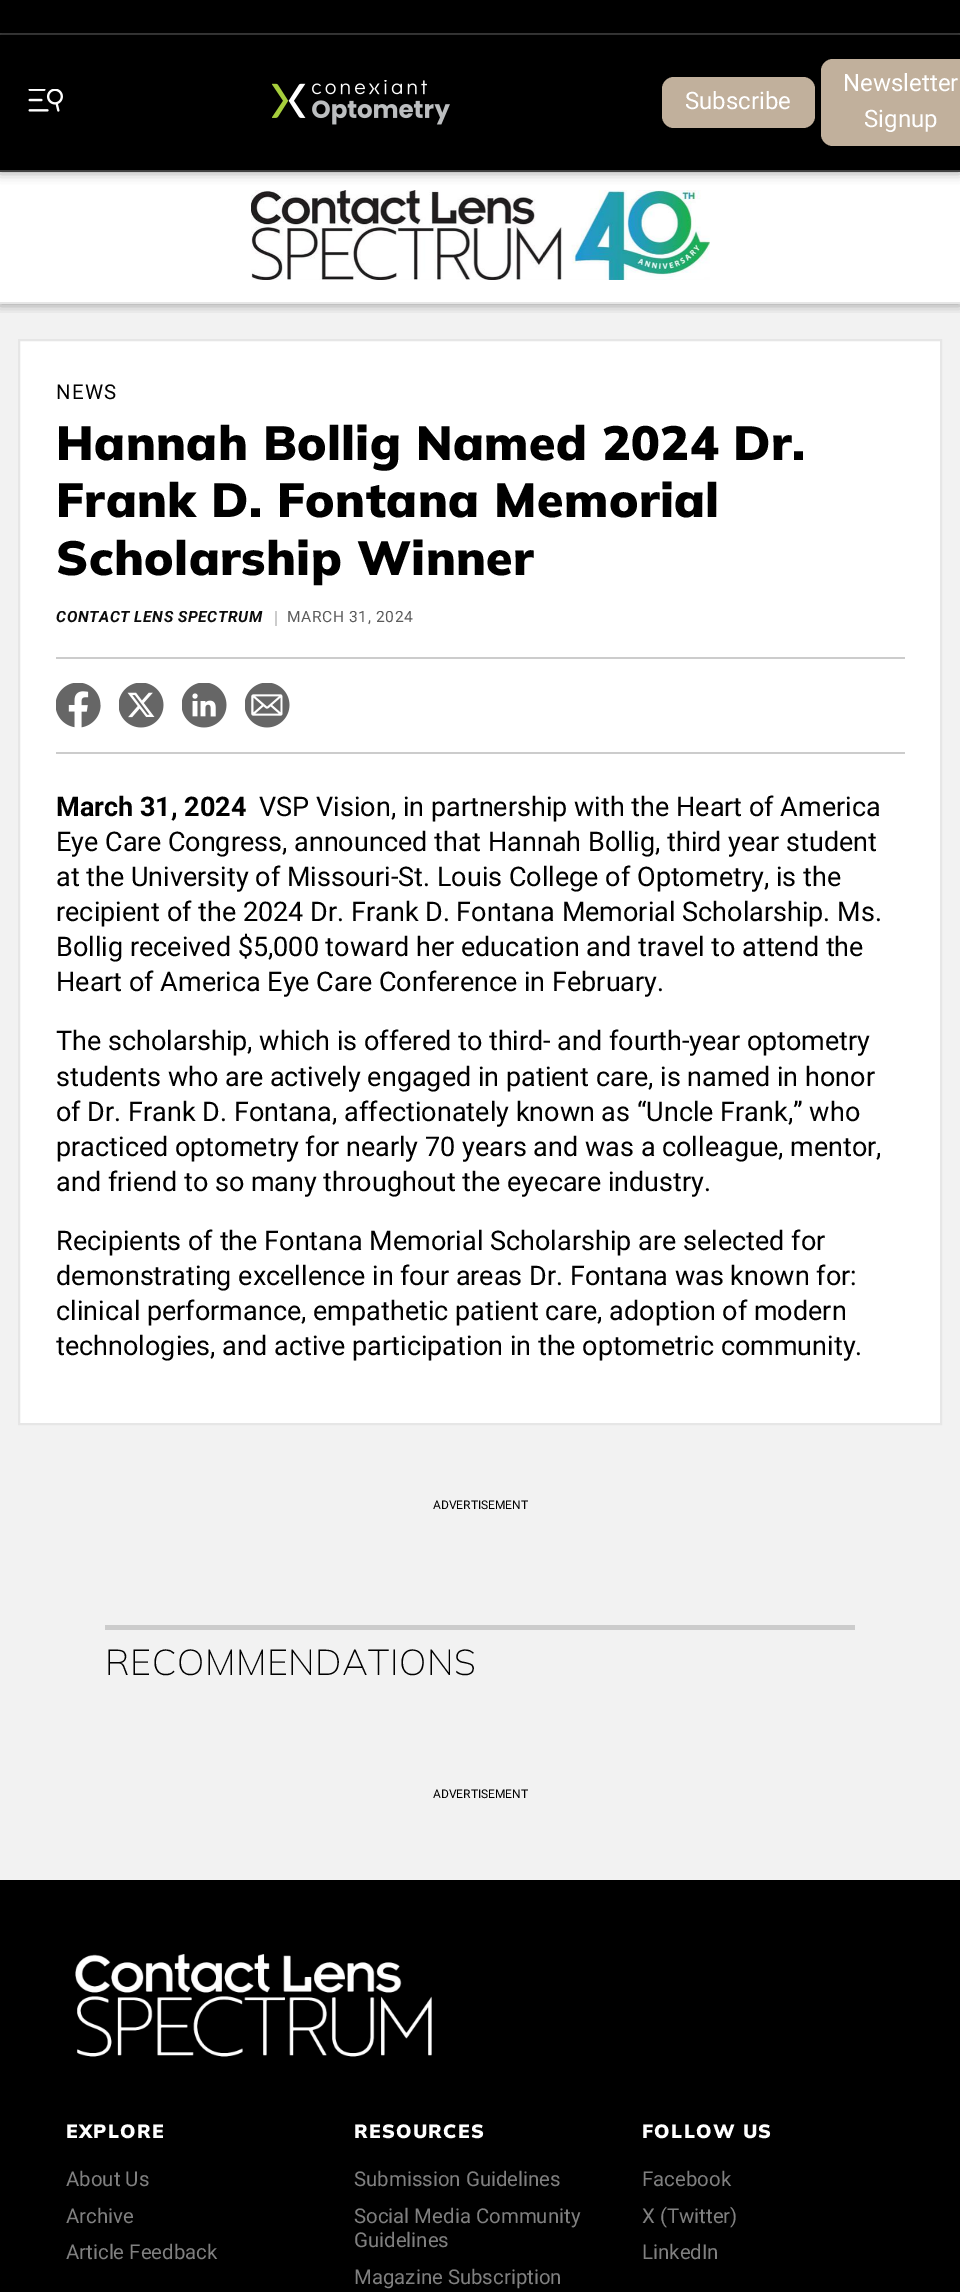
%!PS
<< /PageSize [960 2292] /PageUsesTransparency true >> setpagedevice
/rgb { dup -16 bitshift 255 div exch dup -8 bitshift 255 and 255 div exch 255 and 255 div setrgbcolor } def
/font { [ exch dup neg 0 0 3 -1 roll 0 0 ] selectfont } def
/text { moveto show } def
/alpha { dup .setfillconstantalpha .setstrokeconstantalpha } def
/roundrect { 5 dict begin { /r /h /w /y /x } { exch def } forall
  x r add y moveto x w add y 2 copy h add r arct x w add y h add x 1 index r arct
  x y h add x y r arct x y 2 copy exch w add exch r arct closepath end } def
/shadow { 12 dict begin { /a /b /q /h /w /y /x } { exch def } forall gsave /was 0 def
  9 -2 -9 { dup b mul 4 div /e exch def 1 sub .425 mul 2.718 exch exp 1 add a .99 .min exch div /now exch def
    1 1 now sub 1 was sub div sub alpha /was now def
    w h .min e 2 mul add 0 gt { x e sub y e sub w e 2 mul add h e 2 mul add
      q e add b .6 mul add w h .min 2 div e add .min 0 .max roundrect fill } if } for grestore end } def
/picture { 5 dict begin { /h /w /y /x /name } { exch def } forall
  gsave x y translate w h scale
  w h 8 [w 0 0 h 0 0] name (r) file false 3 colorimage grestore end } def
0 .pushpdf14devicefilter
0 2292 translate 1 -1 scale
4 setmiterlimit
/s1 { /Roboto-Regular 24 font 16#FFFFFF rgb } def
/s2 { /Roboto-Bold 27 font 16#000000 rgb } def
/s3 { /Roboto-Regular 27 font 16#000000 rgb } def
/s4 { /Roboto-Regular 12 font 16#000000 rgb } def
/s5 { /Roboto-Regular 20.4 font 16#808080 rgb } def
16#FFFFFF rgb
0 0 960 2292 rectfill
16#000000 rgb
0 0 960 33 rectfill
16#424242 rgb
0 33 960 2 rectfill
16#000000 rgb
0 35 960 136 0 6 0.5 shadow
16#F2F2F2 rgb
0 304 960 1576 rectfill
gsave
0 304 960 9 rectclip
16#000000 rgb
0 171 960 132 0 6 0.5 shadow
grestore
16#000000 rgb
0 35 960 135 rectfill
16#424242 rgb
0 170 960 2 rectfill
(pic1.raw) 28 89 35 23 picture
(pic2.raw) 272 80 178 45 picture
16#C1B09C rgb
662 77 153 51 12 roundrect fill
s1
(Subscribe) 685 109 text
16#C1B09C rgb
821 59 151 87 12 roundrect fill
s1
(Newsletter) 843 91 text
(Signup) 864 127 text
16#E6E6E6 rgb
0 302 960 2 rectfill
(pic3.raw) 251 190 459 90 picture
16#FFFFFF rgb
19 340 moveto 941 340 lineto 941 1424 lineto 19 1424 lineto closepath gsave fill grestore
16#E6E6E6 rgb
2 setlinewidth
stroke
16#CCCCCC rgb
56 657 849 2 rectfill
/Roboto-Regular 20.4 font
16#000000 rgb
56 399 moveto 1.25 0 (NEWS) ashow
/Mulish-Black 48 font
56 460 moveto 0.5 0 (Hannah Bollig Named 2024 Dr.) ashow
56 517 moveto 0.5 0 (Frank D. Fontana Memorial) ashow
56 575 moveto 0.5 0 (Scholarship Winner) ashow
gsave
56 611 823 22 rectclip
/Roboto-BoldItalic 15.6 font
16#0C0C0C rgb
56 622 moveto 0.6 0 (CONTACT LENS SPECTRUM) ashow
grestore
16#CCCCCC rgb
275 611 2 15 rectfill
gsave
56 611 823 22 rectclip
/Roboto-Regular 15.6 font
16#5B5B5B rgb
287 622 moveto 0.6 0 (MARCH 31, 2024) ashow
grestore
56 752 849 2 rectfill
(pic4.raw) 56 683 45 45 picture
(pic5.raw) 119 683 45 45 picture
(pic6.raw) 182 683 45 45 picture
(pic7.raw) 245 683 45 45 picture
s2
(March 31, 2024) 56 816 text
s3
(VSP Vision, in partnership with the Heart of America) 259 816 text
(Eye Care Congress, announced that Hannah Bollig, third year student) 56 851 text
(at the University of Missouri-St. Louis College of Optometry, is the) 56 886 text
(recipient of the 2024 Dr. Frank D. Fontana Memorial Scholarship. Ms.) 56 921 text
(Bollig received $5,000 toward her education and travel to attend the) 56 956 text
(Heart of America Eye Care Conference in February.) 56 991 text
(The scholarship, which is offered to third- and fourth-year optometry) 56 1050 text
(students who are actively engaged in patient care, is named in honor) 56 1086 text
(of Dr. Frank D. Fontana, affectionately known as “Uncle Frank,” who) 56 1121 text
(practiced optometry for nearly 70 years and was a colleague, mentor,) 56 1156 text
(and friend to so many throughout the eyecare industry.) 56 1191 text
(Recipients of the Fontana Memorial Scholarship are selected for) 56 1250 text
(demonstrating excellence in four areas Dr. Fontana was known for:) 56 1285 text
(clinical performance, empathetic patient care, adoption of modern) 56 1320 text
(technologies, and active participation in the optometric community.) 56 1355 text
s4
(ADVERTISEMENT) 433 1509 text
16#CCCCCC rgb
105 1625 750 5 rectfill
/Mulish-ExtraLight 36 font
16#000000 rgb
105 1675 moveto 0.5 0 (RECOMMENDATIONS) ashow
s4
(ADVERTISEMENT) 433 1798 text
0 1880 960 412 rectfill
(pic8.raw) 75 1954 357 103 picture
/Mulish-Black 19.25 font
16#FFFFFF rgb
66 2138 moveto 1.25 0 (EXPLORE) ashow
s5
(About Us) 66 2186 text
(Archive) 66 2223 text
(Article Feedback) 66 2259 text
/Mulish-Black 19.25 font
16#FFFFFF rgb
354 2138 moveto 1.25 0 (RESOURCES) ashow
s5
(Submission Guidelines) 354 2186 text
(Social Media Community) 354 2223 text
(Guidelines) 354 2247 text
(Magazine Subscription) 354 2284 text
/Mulish-Black 19.25 font
16#FFFFFF rgb
642 2138 moveto 1.25 0 (FOLLOW US) ashow
s5
(Facebook) 642 2186 text
(X \(Twitter\)) 642 2223 text
(LinkedIn) 642 2259 text
.poppdf14devicefilter showpage
